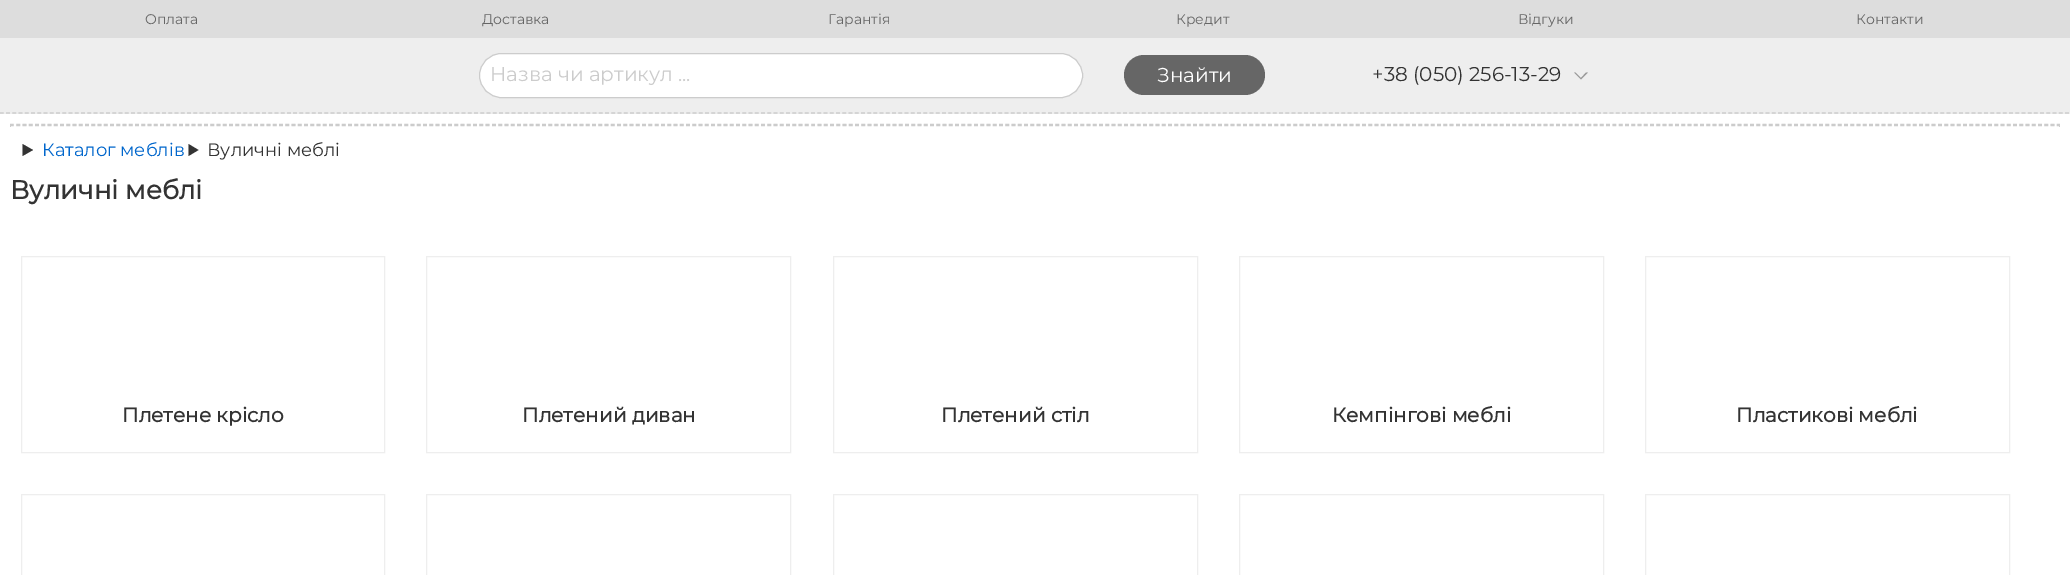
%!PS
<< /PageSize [2070 575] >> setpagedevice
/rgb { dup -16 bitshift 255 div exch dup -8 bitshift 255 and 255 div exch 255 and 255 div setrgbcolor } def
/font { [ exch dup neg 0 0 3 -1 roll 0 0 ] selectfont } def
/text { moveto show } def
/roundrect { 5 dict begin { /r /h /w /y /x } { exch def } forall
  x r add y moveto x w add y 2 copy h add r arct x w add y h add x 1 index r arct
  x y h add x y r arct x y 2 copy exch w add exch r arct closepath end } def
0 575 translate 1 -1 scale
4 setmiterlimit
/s1 { /Montserrat-Regular 14 font 16#666666 rgb } def
/s2 { /Montserrat-Regular 20 font 16#CCCCCC rgb } def
/s3 { /Montserrat-Regular 20 font 16#FFFFFF rgb } def
/s4 { /Montserrat-Regular 20 font 16#333333 rgb } def
/s5 { /Montserrat-Regular 18 font 16#0066CC rgb } def
/s6 { /Montserrat-Regular 18 font 16#333333 rgb } def
/s7 { /Montserrat-Bold 26 font 16#333333 rgb } def
/s8 { /Montserrat-Bold 20 font 16#333333 rgb } def
16#FFFFFF rgb
0 0 2070 575 rectfill
16#DDDDDD rgb
0 0 2070 38 rectfill
s1
(Оплата) 145 24 text
(Доставка) 482 24 text
(Гарантія) 828 24 text
(Кредит) 1176 24 text
(Відгуки) 1518 24 text
(Контакти) 1856 24 text
16#EEEEEE rgb
0 38 2070 76 rectfill
16#CCCCCC rgb
1.2 setlinewidth
[3.75 2.49] 0 setdash
0 113 moveto 2070 113 lineto stroke
16#FFFFFF rgb
479.5 53.5 603 44 22 roundrect gsave fill grestore
16#CCCCCC rgb
1 setlinewidth
[] 0 setdash
stroke
s2
(Назва чи артикул ...) 490 81 text
16#666666 rgb
1124 55 141 40 20 roundrect fill
s3
(Знайти) 1157 82 text
s4
(+38 \(050\) 256-13-29) 1372 81 text
16#999999 rgb
1588 72.5 moveto 1581 79.5 lineto 1581 78 lineto 1586 72.5 lineto closepath 1581 79.5 moveto 1574 72.5 lineto 1575.5 72.5 lineto 1581 78 lineto closepath fill
16#CCCCCC rgb
1.2 setlinewidth
[3.75 2.51] 0 setdash
10 124.5 moveto 2060 124.5 lineto stroke
2059 124 1 3 rectfill
10 125.5 moveto 2060 125.5 lineto stroke
10 124 1 3 rectfill
16#333333 rgb
22.5 144 moveto 33 150 lineto 22.5 156 lineto closepath fill
s5
(Каталог меблів) 42 156 text
16#333333 rgb
188.5 144 moveto 198.5 150 lineto 188.5 156 lineto closepath fill
(Вуличні меблі) 207 156 text
s7
(Вуличні меблі) 10 199 text
16#EEEEEE rgb
1 setlinewidth
[] 0 setdash
21.5 256.5 363 196 rectstroke
s8
(Плетене крісло) 122 422 text
16#EEEEEE rgb
426.5 256.5 364 196 rectstroke
s8
(Плетений диван) 522 422 text
16#EEEEEE rgb
833.5 256.5 364 196 rectstroke
s8
(Плетений стіл) 941 422 text
16#EEEEEE rgb
1239.5 256.5 364 196 rectstroke
s8
(Кемпінгові меблі) 1332 422 text
16#EEEEEE rgb
1645.5 256.5 364 196 rectstroke
s8
(Пластикові меблі) 1736 422 text
16#EEEEEE rgb
21.5 494.5 363 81 rectstroke
426.5 494.5 364 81 rectstroke
833.5 494.5 364 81 rectstroke
1239.5 494.5 364 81 rectstroke
1645.5 494.5 364 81 rectstroke
showpage
